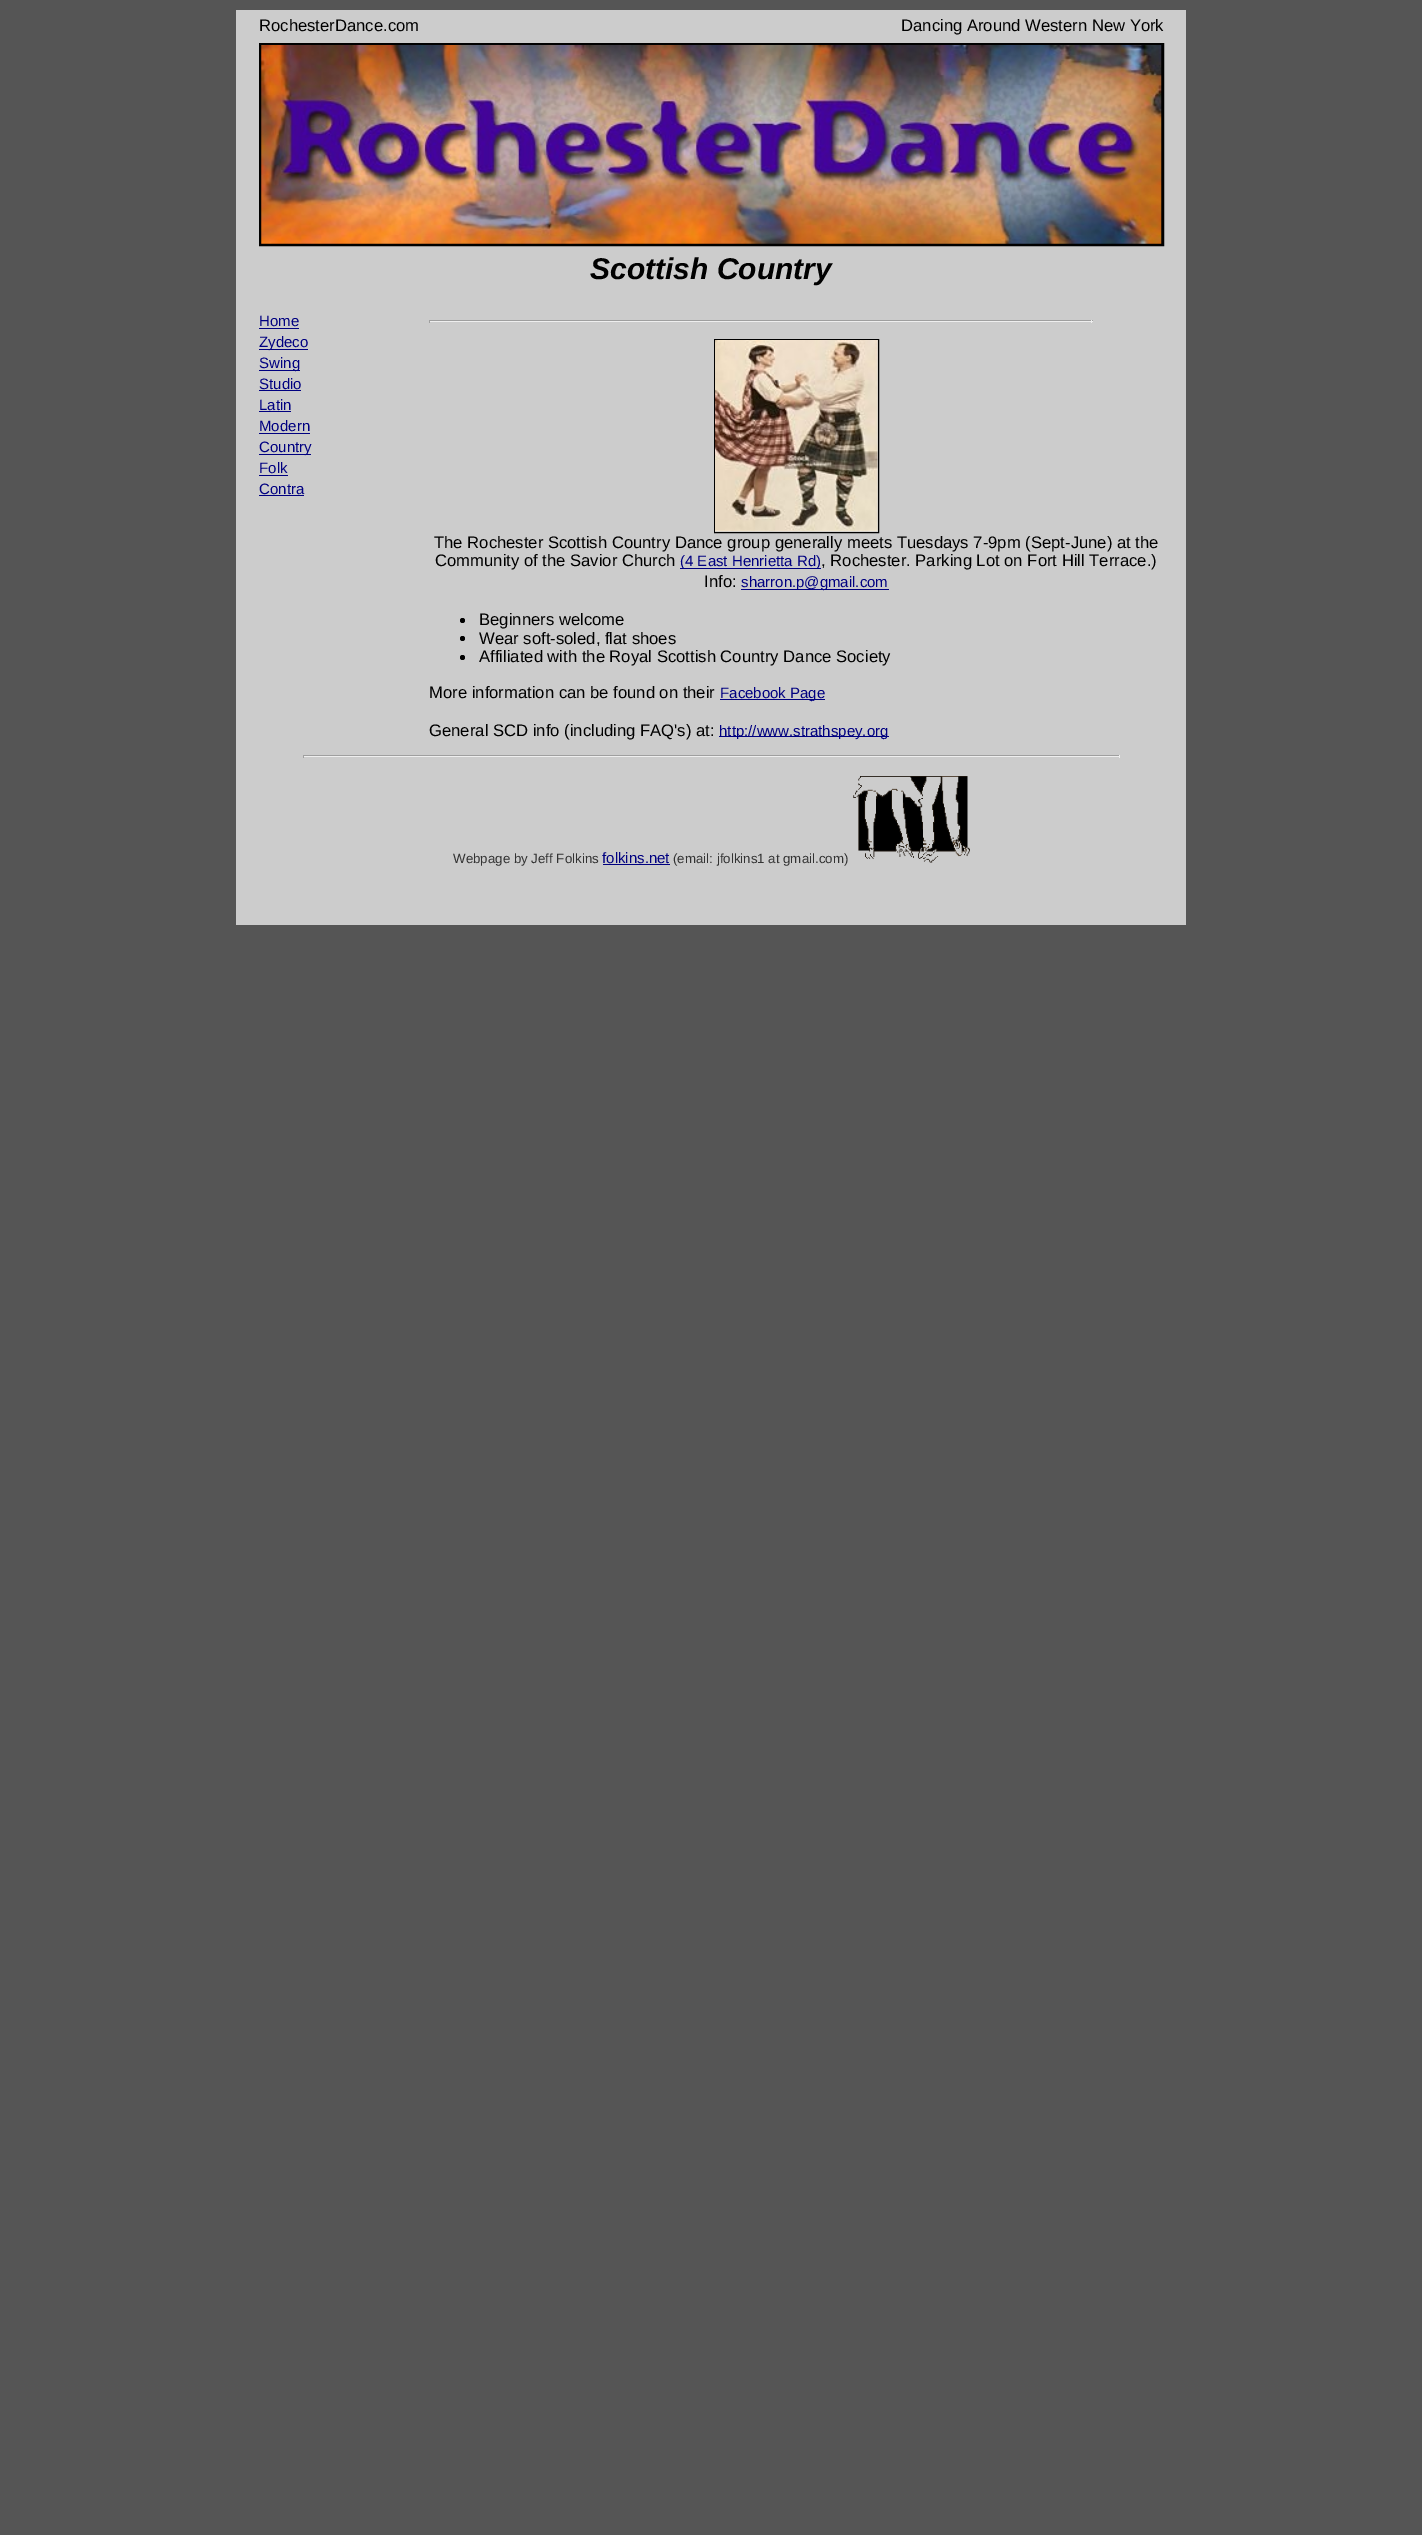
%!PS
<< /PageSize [1422 2535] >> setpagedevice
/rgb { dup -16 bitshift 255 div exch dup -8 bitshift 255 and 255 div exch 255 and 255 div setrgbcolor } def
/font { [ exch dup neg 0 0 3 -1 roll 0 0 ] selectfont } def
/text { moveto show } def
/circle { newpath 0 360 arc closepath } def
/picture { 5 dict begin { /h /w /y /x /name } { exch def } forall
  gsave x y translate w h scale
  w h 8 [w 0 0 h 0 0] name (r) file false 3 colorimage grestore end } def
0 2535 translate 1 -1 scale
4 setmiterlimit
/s1 { /LiberationSans-Regular 16.65 font 16#000000 rgb } def
/s2 { /LiberationSans-BoldItalic 30 font 16#000000 rgb } def
/s3 { /LiberationSans-Regular 15 font 16#000080 rgb } def
/s4 { /LiberationSans-Regular 13.3 font 16#333333 rgb } def
16#555555 rgb
0 0 1422 2535 rectfill
16#CCCCCC rgb
236 10 950 915 rectfill
s1
(RochesterDance.com) 259 31 text
(Dancing Around Western New York) 901 31 text
3 setlinewidth
260.5 44.5 902 200 rectstroke
(pic1.raw) 261 45 901 199 picture
s2
(Scottish Country) 590 279 text
s3
(Home) 259 326 text
259 328 40 1 rectfill
259 349 49 1 rectfill
(Zydeco) 259 347 text
259 370 41 1 rectfill
(Swing) 259 368 text
(Studio) 259 389 text
259 390 42 1 rectfill
(Latin) 259 410 text
259 411 32 1 rectfill
(Modern) 259 431 text
259 433 51 1 rectfill
259 454 52 1 rectfill
(Country) 259 452 text
(Folk) 259 473 text
259 475 29 1 rectfill
(Contra) 259 494 text
259 495 45 1 rectfill
16#9F9F9F rgb
429 320 664 1 rectfill
16#EEEEEE rgb
1091 320 1 3 rectfill
429 321 664 1 rectfill
16#9F9F9F rgb
429 320 1 3 rectfill
16#000000 rgb
1 setlinewidth
714.5 339.5 164 193 rectstroke
(pic2.raw) 715 340 163 192 picture
s1
(The Rochester Scottish Country Dance group generally meets Tuesdays 7-9pm \(Sept-June\) at the) 434 548 text
(Community of the Savior Church) 435 566 text
16#000080 rgb
680 568 141 1 rectfill
s3
(\(4 East Henrietta Rd\)) 680 566 text
s1
(, Rochester. Parking Lot on Fort Hill Terrace.\)) 821 566 text
(Info:) 704 587 text
16#000080 rgb
741 589 148 1 rectfill
s3
(sharron.p@gmail.com) 741 587 text
16#000000 rgb
462.5 620.5 2.5 circle fill
s1
(Beginners welcome) 479 625 text
462.5 638.5 2.5 circle fill
(Wear soft-soled, flat shoes) 479 644 text
462.5 657.5 2.5 circle fill
(Affiliated with the Royal Scottish Country Dance Society) 479 662 text
(More information can be found on their) 429 698 text
16#000080 rgb
720 699 105 1 rectfill
s3
(Facebook Page) 720 698 text
s1
(General SCD info \(including FAQ's\) at:) 429 736 text
16#000080 rgb
719 736 170 1 rectfill
s3
(http://www.strathspey.org) 719 736 text
16#9F9F9F rgb
303 755 817 1 rectfill
16#EEEEEE rgb
1119 755 1 3 rectfill
303 756 817 1 rectfill
16#9F9F9F rgb
303 755 1 3 rectfill
s4
(Webpage by Jeff Folkins) 453 863 text
s3
(folkins.net) 602 863 text
603 864 67 1 rectfill
s4
(\(email: jfolkins1 at gmail.com\)) 673 863 text
(pic3.raw) 853 776 117 87 picture
showpage
